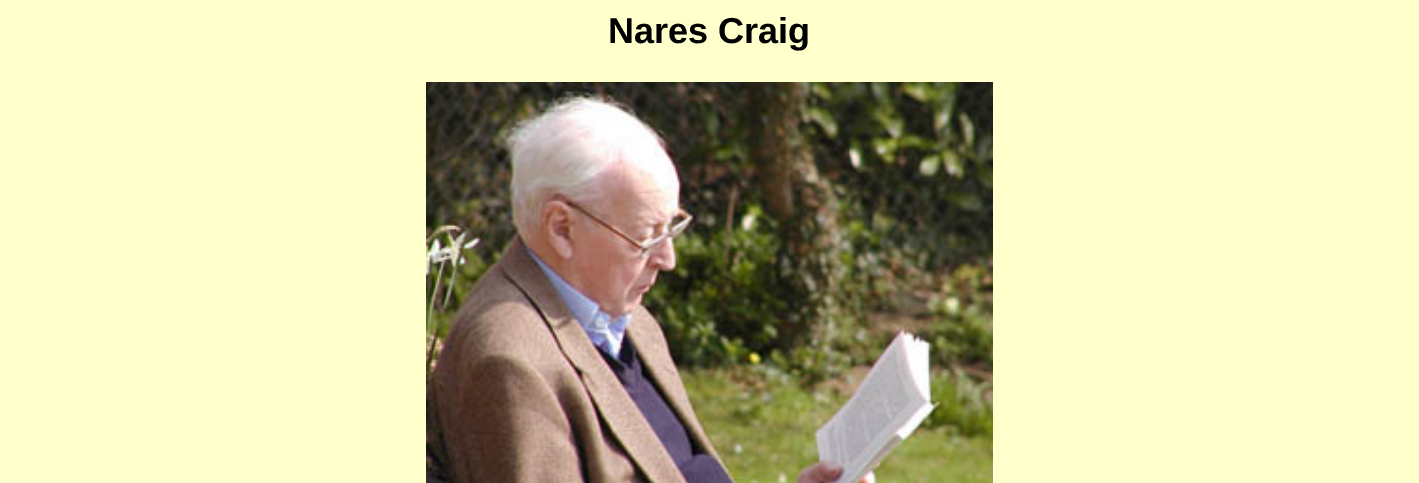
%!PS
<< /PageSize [1419 483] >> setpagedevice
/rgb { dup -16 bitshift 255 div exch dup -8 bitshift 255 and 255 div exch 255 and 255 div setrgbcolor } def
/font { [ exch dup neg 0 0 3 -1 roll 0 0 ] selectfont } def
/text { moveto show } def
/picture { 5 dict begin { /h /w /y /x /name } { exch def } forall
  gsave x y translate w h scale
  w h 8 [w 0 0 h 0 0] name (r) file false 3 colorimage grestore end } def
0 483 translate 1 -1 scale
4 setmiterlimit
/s1 { /LiberationSans-Bold 36 font 16#000000 rgb } def
16#FFFFCC rgb
0 0 1419 483 rectfill
s1
(Nares Craig) 608 43 text
(pic1.raw) 426 82 567 401 picture
showpage
